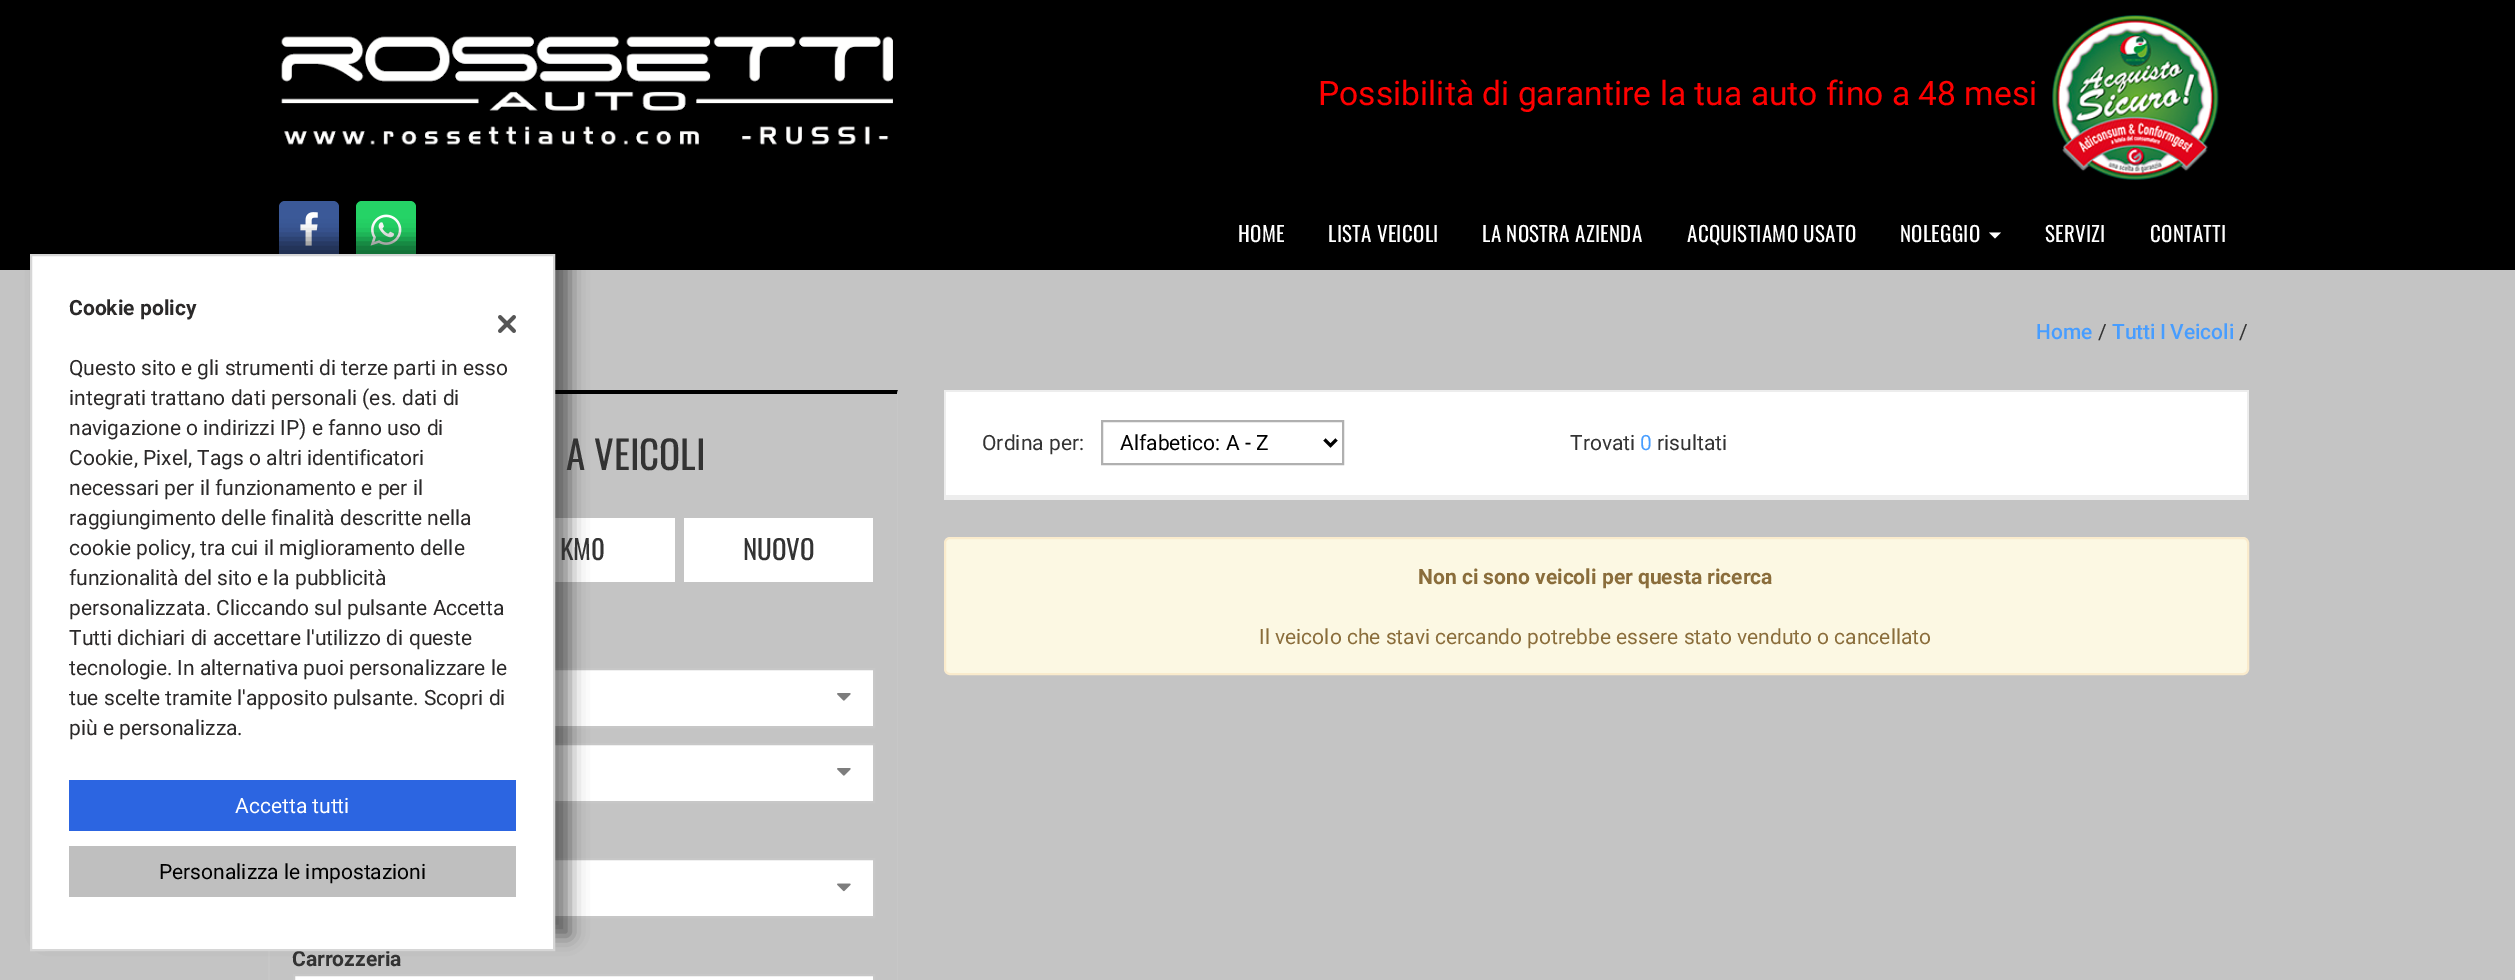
%!PS
<< /PageSize [2515 980] /PageUsesTransparency true >> setpagedevice
/rgb { dup -16 bitshift 255 div exch dup -8 bitshift 255 and 255 div exch 255 and 255 div setrgbcolor } def
/font { [ exch dup neg 0 0 3 -1 roll 0 0 ] selectfont } def
/text { moveto show } def
/alpha { dup .setfillconstantalpha .setstrokeconstantalpha } def
/roundrect { 5 dict begin { /r /h /w /y /x } { exch def } forall
  x r add y moveto x w add y 2 copy h add r arct x w add y h add x 1 index r arct
  x y h add x y r arct x y 2 copy exch w add exch r arct closepath end } def
/shadow { 12 dict begin { /a /b /q /h /w /y /x } { exch def } forall gsave /was 0 def
  9 -2 -9 { dup b mul 4 div /e exch def 1 sub .425 mul 2.718 exch exp 1 add a .99 .min exch div /now exch def
    1 1 now sub 1 was sub div sub alpha /was now def
    w h .min e 2 mul add 0 gt { x e sub y e sub w e 2 mul add h e 2 mul add
      q e add b .6 mul add w h .min 2 div e add .min 0 .max roundrect fill } if } for grestore end } def
/picture { 5 dict begin { /h /w /y /x /name } { exch def } forall
  gsave x y translate w h scale
  w h 8 [w 0 0 h 0 0] name (r) file false 3 colorimage grestore end } def
0 .pushpdf14devicefilter
0 980 translate 1 -1 scale
4 setmiterlimit
/s1 { /Roboto-Bold 21 font 16#333333 rgb } def
/s2 { /Roboto-Bold 21 font 16#2B2929 rgb } def
/s3 { /Roboto-Regular 21 font 16#2B2929 rgb } def
/s4 { /Roboto-Regular 21 font 16#FFFFFF rgb } def
/s5 { /Roboto-Regular 21 font 16#000000 rgb } def
/s6 { /Roboto-Regular 33.6 font 16#FF0000 rgb } def
/s7 { /Roboto-Medium 21 font 16#479DFF rgb } def
/s8 { /Roboto-Regular 21 font 16#333333 rgb } def
/s9 { /Oswald-Regular 39 font 16#333333 rgb } def
/s10 { /Oswald-Regular 27 font 16#333333 rgb } def
/s11 { /Roboto-Regular 21 font 16#479DFF rgb } def
/s12 { /Roboto-Bold 21 font 16#8A6D3B rgb } def
/s13 { /Roboto-Regular 21 font 16#8A6D3B rgb } def
16#C4C4C4 rgb
0 0 2515 980 rectfill
16#000000 rgb
0 0 2515 270 rectfill
16#3B5998 rgb
279 201 60 63 6 roundrect fill
(pic4.raw) 300 212 18 34 picture
16#25D366 rgb
356 201 60 63 6 roundrect fill
(pic5.raw) 370 214 32 32 picture
16#000000 rgb
268 390 moveto 898 390 lineto 897 394 lineto 270 394 lineto closepath fill
16#C7C7C7 rgb
268 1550 moveto 268 390 lineto 270 394 lineto 270 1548 lineto closepath fill
16#FFFFFF rgb
555 518 120 64 rectfill
555 670 318 56 rectfill
16#C7C7C7 rgb
2 setlinewidth
294 669 580 58 rectstroke
16#FFFFFF rgb
555 745 318 56 rectfill
16#C7C7C7 rgb
294 744 580 58 rectstroke
16#FFFFFF rgb
555 860 318 56 rectfill
16#C7C7C7 rgb
294 859 580 58 rectstroke
16#000000 rgb
45 239 525 697 0 9 0.5 shadow
s1
(Carrozzeria) 292 966 text
16#FFFFFF rgb
31 255 moveto 554 255 lineto 554 950 lineto 31 950 lineto closepath gsave fill grestore
16#D6D6D6 rgb
stroke
s2
(Cookie policy) 69 315 text
s3
(Questo sito e gli strumenti di terze parti in esso) 69 375 text
(integrati trattano dati personali \(es. dati di) 69 405 text
(navigazione o indirizzi IP\) e fanno uso di) 69 435 text
(Cookie, Pixel, Tags o altri identificatori) 69 465 text
(necessari per il funzionamento e per il) 69 495 text
(raggiungimento delle finalità descritte nella) 69 525 text
(cookie policy, tra cui il miglioramento delle) 69 555 text
(funzionalità del sito e la pubblicità) 69 585 text
(personalizzata. Cliccando sul pulsante Accetta) 69 615 text
(Tutti dichiari di accettare l'utilizzo di queste) 69 645 text
(tecnologie. In alternativa puoi personalizzare le) 69 675 text
(tue scelte tramite l'apposito pulsante. Scopri di) 69 705 text
(più e personalizza.) 69 735 text
(pic1.raw) 498 315 18 18 picture
16#2C65E1 rgb
69 780 447 51 rectfill
s4
(Accetta tutti) 235 813 text
16#BFBFBF rgb
69 846 447 51 rectfill
s5
(Personalizza le impostazioni) 159 879 text
(pic2.raw) 281 36 612 109 picture
s6
(Possibilità di garantire la tua auto fino a 48 mesi) 1318 105 text
(pic3.raw) 2052 15 167 165 picture
/Oswald-Regular 21 font
16#FFFFFF rgb
1238 242 moveto 0.25 0 (HOME) ashow
1328 242 moveto 0.25 0 (LISTA VEICOLI) ashow
1482 242 moveto 0.25 0 (LA NOSTRA AZIENDA) ashow
1687 242 moveto 0.25 0 (ACQUISTIAMO USATO) ashow
1900 242 moveto 0.25 0 (NOLEGGIO) ashow
1989 232.5 moveto 2001 232.5 lineto 1995 238.5 lineto closepath fill
2045 242 moveto 0.25 0 (SERVIZI) ashow
2150 242 moveto 0.25 0 (CONTATTI) ashow
s7
(Home) 2036 339 text
s8
(/) 2098 339 text
/Roboto-Medium 21 font
16#479DFF rgb
2112 339 moveto -1 0 32 (Tutti I Veicoli) widthshow
s8
(/) 2239 339 text
16#C7C7C7 rgb
898 390 moveto 898 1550 lineto 897 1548 lineto 897 394 lineto closepath fill
s9
(A VEICOLI) 566 470 text
s10
(KM0) 560 560 text
16#FFFFFF rgb
684 518 189 64 rectfill
s10
(NUOVO) 743 560 text
(pic6.raw) 837 693 14 8 picture
(pic6.raw) 837 768 14 8 picture
(pic7.raw) 837 883 14 9 picture
16#FFFFFF rgb
294 975 moveto 874 975 lineto 874 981 lineto 294 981 lineto closepath gsave fill grestore
16#C7C7C7 rgb
stroke
16#FFFFFF rgb
946 392 1301 103 rectfill
16#EDEDED rgb
944 390 1305 2 rectfill
2247 390 2 110 rectfill
944 495 1305 5 rectfill
944 390 2 110 rectfill
s8
(Ordina per:) 982 450 text
16#B0B0B0 rgb
1102 421 241 43 rectstroke
16#000000 rgb
3 setlinewidth
1324.5 439.5 moveto 1330.5 445.5 lineto 1336.5 439.5 lineto stroke
(Alfabetico: A - Z) 1120 450 text
s8
(Trovati) 1570 450 text
s11
(0) 1640 450 text
s8
(risultati) 1657 450 text
16#FCF8E3 rgb
945 538 1303 136 5 roundrect gsave fill grestore
16#FAEBCC rgb
2 setlinewidth
stroke
s12
(Non ci sono veicoli per questa ricerca) 1418 584 text
s13
(Il veicolo che stavi cercando potrebbe essere stato venduto o cancellato) 1259 644 text
.poppdf14devicefilter showpage
